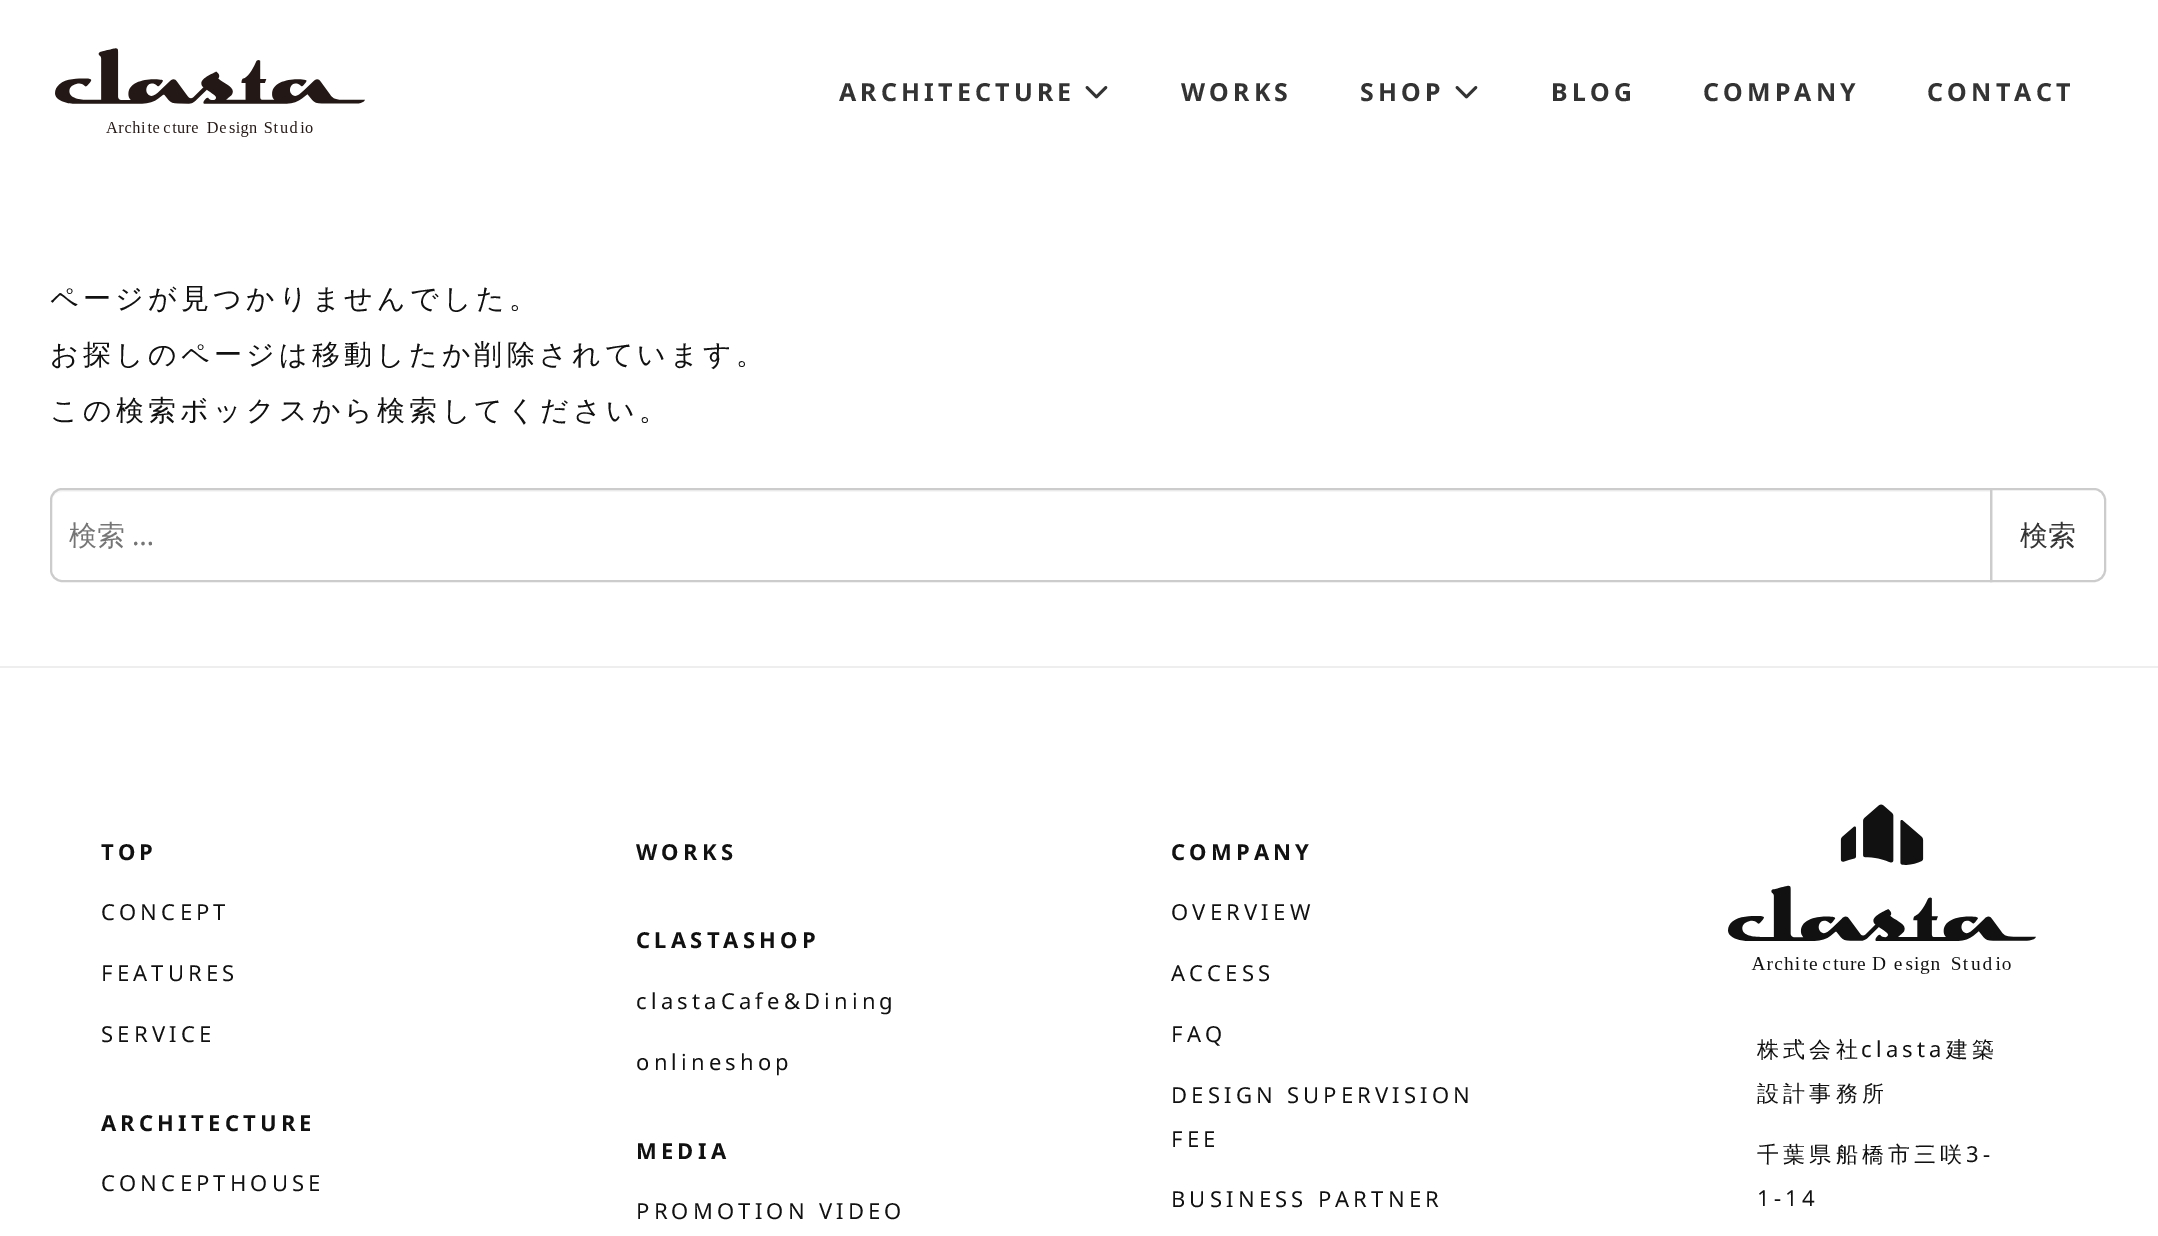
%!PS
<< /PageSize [2158 1236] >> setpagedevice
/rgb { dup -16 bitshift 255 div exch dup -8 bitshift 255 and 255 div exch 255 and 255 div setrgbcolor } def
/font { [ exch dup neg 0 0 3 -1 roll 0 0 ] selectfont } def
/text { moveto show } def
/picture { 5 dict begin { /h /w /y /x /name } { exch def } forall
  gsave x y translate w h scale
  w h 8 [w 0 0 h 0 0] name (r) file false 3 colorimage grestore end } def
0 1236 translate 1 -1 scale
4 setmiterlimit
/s1 { /WenQuanYiZenHei-Medium 28 font 16#757575 rgb } def
/s2 { /NotoSans-Regular 28 font 16#757575 rgb } def
/s3 { /WenQuanYiZenHei-Medium 28 font 16#333333 rgb } def
16#FFFFFF rgb
0 0 2158 1236 rectfill
(pic1.raw) 55 48 310 89 picture
/NotoSans-Bold 24.9 font
16#333333 rgb
839 101 moveto 4.2 0 (ARCHITECTURE) ashow
(pic2.raw) 1085 86 23 13 picture
1181 101 moveto 4.2 0 (WORKS) ashow
1360 101 moveto 4.2 0 (SHOP) ashow
(pic2.raw) 1455 86 23 13 picture
1551 101 moveto 4.2 0 (BLOG) ashow
1703 101 moveto 4.2 0 (COMPANY) ashow
1927 101 moveto 4.2 0 (CONTACT) ashow
/WenQuanYiZenHei-Medium 28 font
16#111111 rgb
50 308 moveto 4.2 0 (ページが見つかりませんでした。) ashow
50 364 moveto 4.2 0 (お探しのページは移動したか削除されています。) ashow
50 420 moveto 4.2 0 (この検索ボックスから検索してください。) ashow
16#CCCCCC rgb
2 setlinewidth
1991 489 moveto 2094 489 lineto 2100 489 2105 494 2105 500 curveto 2105 570 lineto 2105 576 2100 581 2094 581 curveto 1991 581 lineto closepath stroke
16#FFFFFF rgb
62 488 moveto 1992 488 lineto 1992 582 lineto 62 582 lineto 55.5 582 50 576.5 50 570 curveto 50 500 lineto 50 493.5 55.5 488 62 488 curveto closepath fill
16#F6F6F6 rgb
62 492 moveto 1990 492 lineto 1990 490 lineto 62 490 lineto 55 490 52 496 52 502 curveto 52 496 56 492 62 492 curveto closepath fill
16#CCCCCC rgb
62 489 moveto 1991 489 lineto 1991 581 lineto 62 581 lineto 56 581 51 576 51 570 curveto 51 500 lineto 51 494 56 489 62 489 curveto closepath stroke
s1
(検索) 69 545 text
s2
(…) 132 545 text
s3
(検索) 2020 545 text
16#EEEEEE rgb
0 666 2158 2 rectfill
/NotoSans-Bold 22 font
16#111111 rgb
101 860 moveto 4.2 0 (TOP) ashow
/NotoSans-Regular 22 font
101 920 moveto 4.2 0 (CONCEPT) ashow
101 981 moveto 4.2 0 (FEATURES) ashow
101 1042 moveto 4.2 0 (SERVICE) ashow
/NotoSans-Bold 22 font
101 1131 moveto 4.2 0 (ARCHITECTURE) ashow
/NotoSans-Regular 22 font
101 1191 moveto 4.2 0 (CONCEPTHOUSE) ashow
/NotoSans-Bold 22 font
636 860 moveto 4.2 0 (WORKS) ashow
636 948 moveto 4.2 0 (CLASTASHOP) ashow
/NotoSans-Regular 22 font
636 1009 moveto 4.2 0 (clastaCafe&Dining) ashow
636 1070 moveto 4.2 0 (onlineshop) ashow
/NotoSans-Bold 22 font
636 1159 moveto 4.2 0 (MEDIA) ashow
/NotoSans-Regular 22 font
636 1219 moveto 4.2 0 (PROMOTION VIDEO) ashow
/NotoSans-Bold 22 font
1171 860 moveto 4.2 0 (COMPANY) ashow
/NotoSans-Regular 22 font
1171 920 moveto 4.2 0 (OVERVIEW) ashow
1171 981 moveto 4.2 0 (ACCESS) ashow
1171 1042 moveto 4.2 0 (FAQ) ashow
1171 1103 moveto 4.2 0 (DESIGN SUPERVISION) ashow
1171 1147 moveto 4.2 0 (FEE) ashow
1171 1207 moveto 4.2 0 (BUSINESS PARTNER) ashow
(pic3.raw) 1728 804 308 170 picture
/WenQuanYiZenHei-Medium 22 font
1757 1057 moveto 4.2 0 (株式会社) ashow
/NotoSans-Regular 22 font
1861 1057 moveto 4.2 0 (clasta) ashow
/WenQuanYiZenHei-Medium 22 font
1946 1057 moveto 4.2 0 (建築) ashow
1757 1101 moveto 4.2 0 (設計事務所) ashow
1757 1162 moveto 4.2 0 (千葉県船橋市三咲) ashow
/NotoSans-Regular 22 font
1966 1162 moveto 4.2 0 (3-) ashow
1757 1206 moveto 4.2 0 (1-14) ashow
showpage
